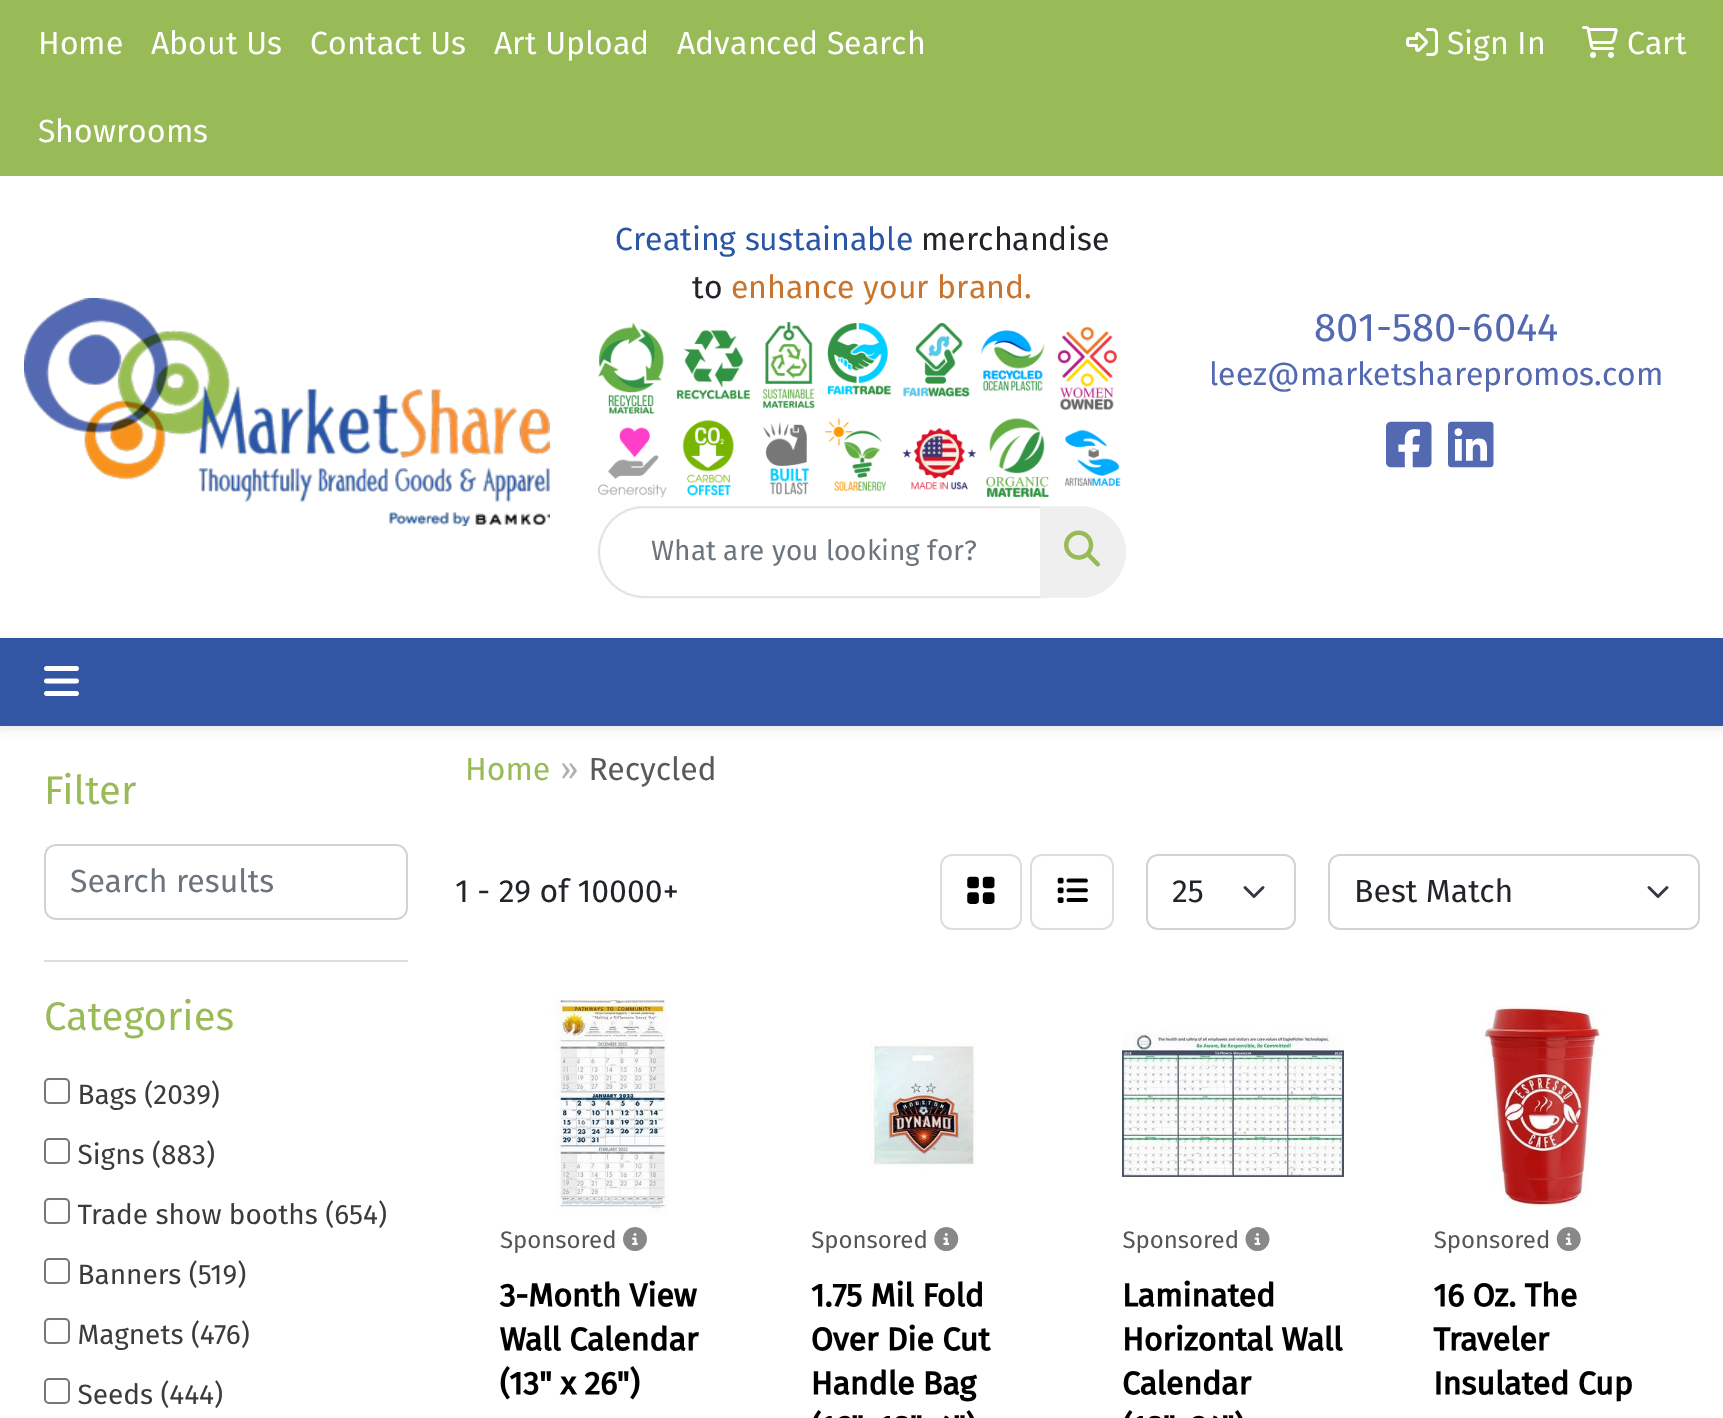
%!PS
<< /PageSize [1723 1418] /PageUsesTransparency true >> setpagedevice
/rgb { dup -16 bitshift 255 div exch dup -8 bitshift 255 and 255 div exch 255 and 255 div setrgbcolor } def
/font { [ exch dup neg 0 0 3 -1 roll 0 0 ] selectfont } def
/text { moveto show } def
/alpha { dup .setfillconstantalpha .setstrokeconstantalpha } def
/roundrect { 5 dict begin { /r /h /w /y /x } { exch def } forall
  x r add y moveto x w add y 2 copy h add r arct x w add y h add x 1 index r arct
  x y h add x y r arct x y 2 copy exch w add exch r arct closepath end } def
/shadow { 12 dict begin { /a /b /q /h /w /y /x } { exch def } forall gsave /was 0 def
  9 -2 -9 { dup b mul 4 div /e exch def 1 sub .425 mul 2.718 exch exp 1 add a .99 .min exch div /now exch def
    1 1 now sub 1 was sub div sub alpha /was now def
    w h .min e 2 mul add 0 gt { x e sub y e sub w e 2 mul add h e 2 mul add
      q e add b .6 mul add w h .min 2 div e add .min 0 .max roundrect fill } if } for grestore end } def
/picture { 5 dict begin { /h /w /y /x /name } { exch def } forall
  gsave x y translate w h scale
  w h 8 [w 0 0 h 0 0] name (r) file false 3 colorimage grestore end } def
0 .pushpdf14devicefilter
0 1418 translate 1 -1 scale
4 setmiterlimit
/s1 { /FiraSans-Regular 32 font 16#FFFFFF rgb } def
/s2 { /FiraSans-Regular 32 font 16#2956A5 rgb } def
/s3 { /FiraSans-Regular 32 font 16#212529 rgb } def
/s4 { /FiraSans-Regular 32 font 16#CA752D rgb } def
/s5 { /FiraSans-Regular 28 font 16#6C757D rgb } def
/s6 { /FiraSans-Regular 40 font 16#5369B1 rgb } def
/s7 { /FiraSans-Regular 32 font 16#5369B1 rgb } def
16#FFFFFF rgb
0 0 1723 1418 rectfill
16#99BB57 rgb
0 0 1723 176 rectfill
s1
(Home) 38 54 text
(About Us) 151 54 text
(Contact Us) 310 54 text
(Art Upload) 494 54 text
(Advanced Search) 677 54 text
(Showrooms) 38 142 text
(pic1.raw) 1406 28 32 28 picture
(Sign In) 1447 54 text
(pic2.raw) 1582 26 36 32 picture
(Cart) 1627 54 text
(pic3.raw) 24 298 526 228 picture
s2
(Creating sustainable) 615 250 text
s3
(merchandise) 921 250 text
(to) 692 298 text
s4
(enhance your brand.) 731 298 text
(pic4.raw) 598 322 523 176 picture
16#E4E4E4 rgb
2 setlinewidth
644 507 moveto 1041 507 lineto 1041 597 lineto 644 597 lineto 619 597 599 577 599 552 curveto 599 527 619 507 644 507 curveto closepath stroke
s5
(What are you looking for?) 651 560 text
16#EFEFEF rgb
1040 508 moveto 1080 508 lineto 1104.5 508 1124 527.5 1124 552 curveto 1124 576.5 1104.5 596 1080 596 curveto 1040 596 lineto closepath fill
1040 506 moveto 1080 506 lineto 1105 506 1126 527 1126 552 curveto 1126 577 1105 598 1080 598 curveto 1040 598 lineto closepath 1040 508 moveto 1080 508 lineto 1104 508 1124 528 1124 552 curveto 1124 576 1104 596 1080 596 curveto 1040 596 lineto closepath eofill
(pic5.raw) 1064 530 36 37 picture
s6
(801-580-6044) 1314 341 text
s7
(leez@marketsharepromos.com) 1209 385 text
(pic6.raw) 1386 421 46 47 picture
(pic7.raw) 1448 421 46 47 picture
16#000000 rgb
0 642 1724 88 0 4 0.07 shadow
16#3255A4 rgb
0 638 1723 88 rectfill
(pic8.raw) 44 666 35 30 picture
(pic9.raw) 44 756 1656 662 picture
.poppdf14devicefilter showpage
